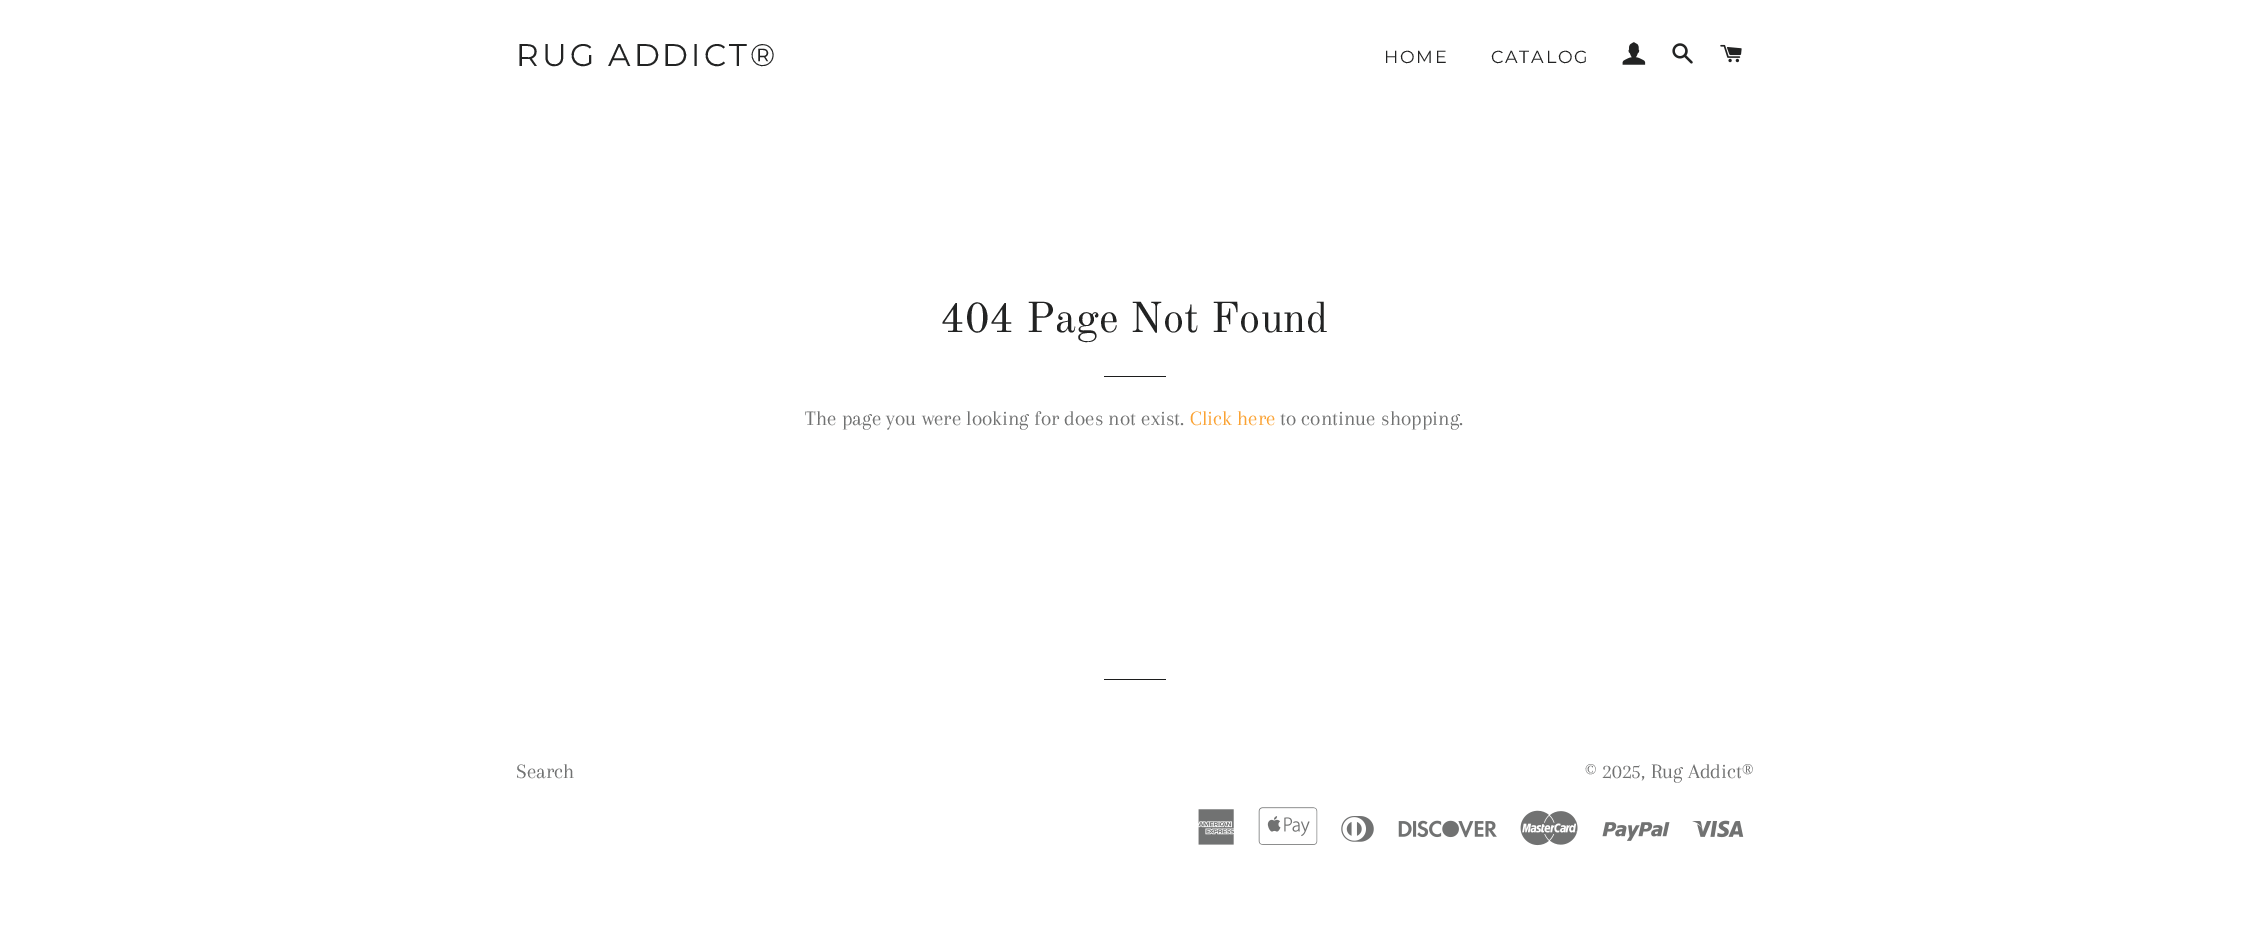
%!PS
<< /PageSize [2268 938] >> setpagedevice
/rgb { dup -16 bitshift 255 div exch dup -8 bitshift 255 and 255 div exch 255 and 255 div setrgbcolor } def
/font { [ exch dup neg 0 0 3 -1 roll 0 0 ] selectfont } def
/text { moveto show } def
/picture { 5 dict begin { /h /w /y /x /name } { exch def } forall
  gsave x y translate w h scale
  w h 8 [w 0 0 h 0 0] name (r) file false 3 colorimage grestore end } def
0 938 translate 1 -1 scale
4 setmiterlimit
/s1 { /OldStandardTT-Regular 42.5 font 16#222323 rgb } def
/s2 { /Arapey-Regular 21.25 font 16#717272 rgb } def
/s3 { /Arapey-Regular 21.25 font 16#FBA232 rgb } def
16#FFFFFF rgb
0 0 2268 938 rectfill
/Montserrat-Thin 31.25 font
16#222323 rgb
516 66 moveto 3.1 0 (RUG ADDICT®) ashow
/Montserrat-Thin 17.5 font
1384 63 moveto 1.75 0 (HOME) ashow
1491 63 moveto 1.75 0 (CATALOG) ashow
(pic1.raw) 1622 42 24 23 picture
(pic2.raw) 1672 43 21 21 picture
(pic3.raw) 1720 44 22 19 picture
s1
(404 Page Not Found) 940 332 text
16#1C1D1D rgb
1104 376 62 1 rectfill
s2
(The page you were looking for does not exist.) 805 425 text
s3
(Click here) 1190 425 text
s2
(to continue shopping.) 1280 425 text
16#1C1D1D rgb
1104 679 62 1 rectfill
s2
(Search) 516 778 text
(© 2025, Rug Addict®) 1585 778 text
(pic4.raw) 1198 809 36 36 picture
(pic5.raw) 1258 807 60 38 picture
(pic6.raw) 1341 816 33 26 picture
(pic7.raw) 1398 820 99 18 picture
(pic8.raw) 1520 810 58 36 picture
(pic9.raw) 1602 822 68 19 picture
(pic10.raw) 1692 820 52 18 picture
showpage
